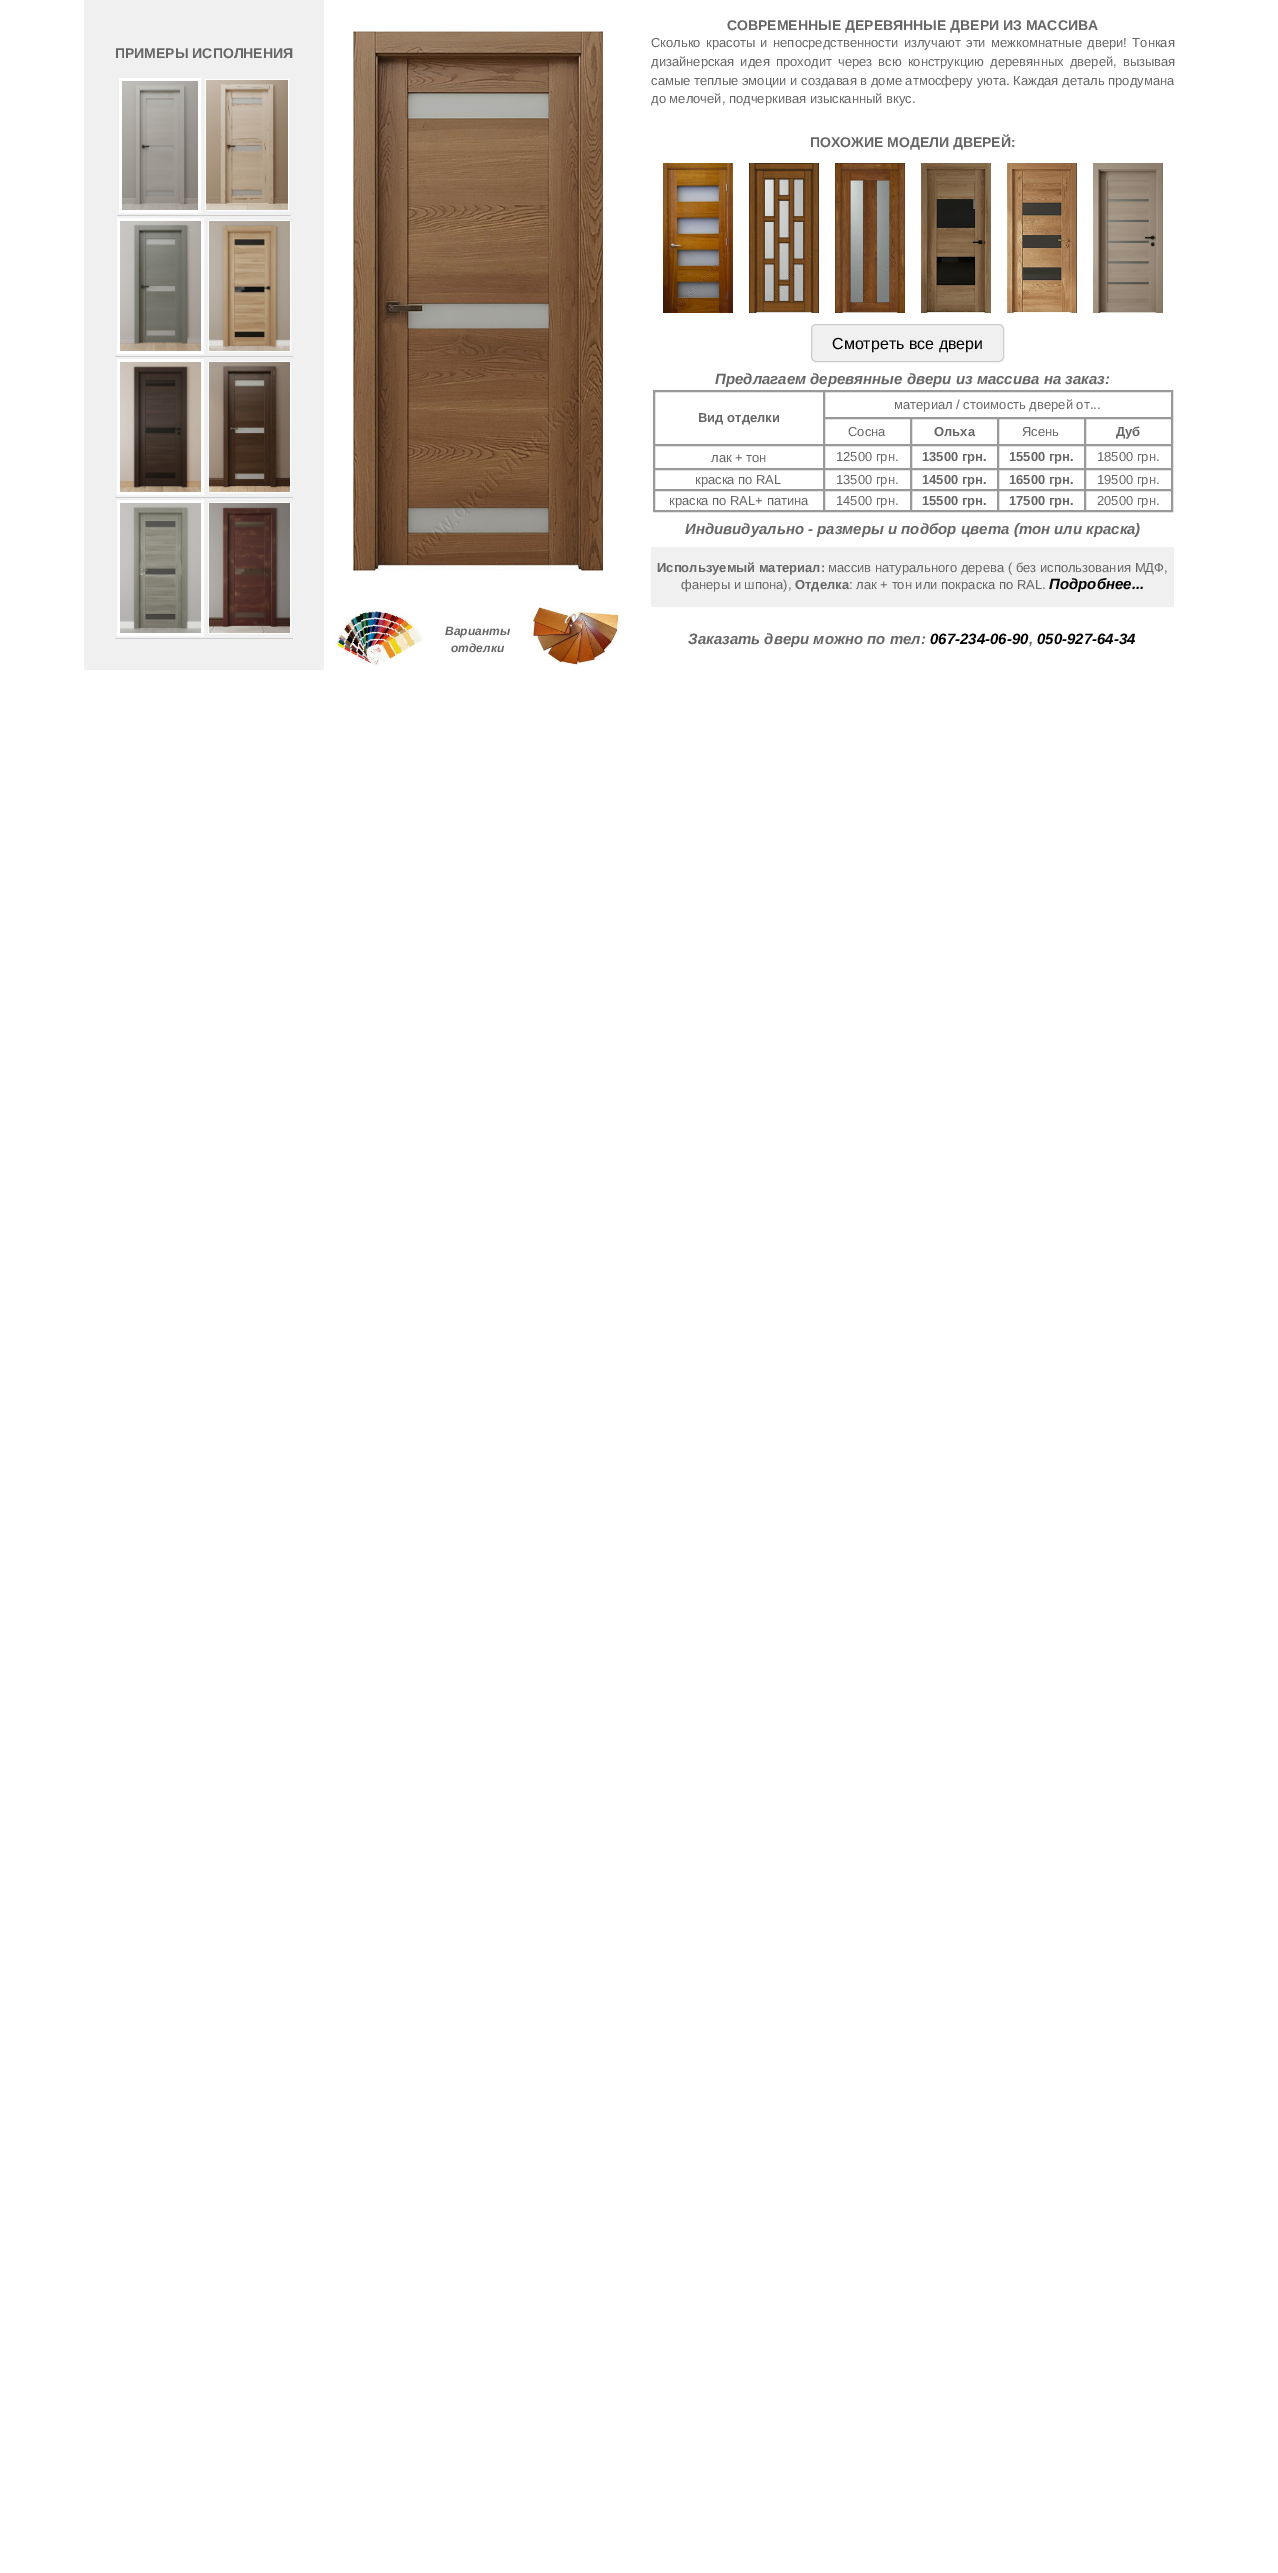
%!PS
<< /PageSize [1278 2573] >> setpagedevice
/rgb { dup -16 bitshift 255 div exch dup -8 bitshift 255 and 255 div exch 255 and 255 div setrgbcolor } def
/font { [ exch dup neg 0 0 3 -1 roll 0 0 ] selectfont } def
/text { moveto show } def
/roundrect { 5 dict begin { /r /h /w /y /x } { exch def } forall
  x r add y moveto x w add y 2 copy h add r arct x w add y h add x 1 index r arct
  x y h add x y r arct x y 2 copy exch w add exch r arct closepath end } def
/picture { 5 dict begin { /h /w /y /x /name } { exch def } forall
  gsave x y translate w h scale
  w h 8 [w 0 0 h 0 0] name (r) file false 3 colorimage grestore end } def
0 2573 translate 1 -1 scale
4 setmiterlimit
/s1 { /LiberationSans-Bold 14 font 16#666666 rgb } def
/s2 { /LiberationSans-Regular 13 font 16#666666 rgb } def
/s3 { /LiberationSans-Regular 16 font 16#000000 rgb } def
/s4 { /LiberationSans-BoldItalic 15 font 16#666666 rgb } def
/s5 { /LiberationSans-Bold 13 font 16#666666 rgb } def
/s6 { /LiberationSans-BoldItalic 15 font 16#000000 rgb } def
/s7 { /LiberationSans-BoldItalic 12 font 16#666666 rgb } def
16#FFFFFF rgb
0 0 1278 2573 rectfill
16#F0F0F0 rgb
84 0 240 670 rectfill
s1
(ПРИМЕРЫ ИСПОЛНЕНИЯ) 115 58 text
16#CCCCCC rgb
117 215 174 1 rectfill
16#FFFFFF rgb
3 setlinewidth
120.5 79.5 79 132 rectstroke
(pic1.raw) 122 81 76 129 picture
1 setlinewidth
205.5 79.5 83 131 rectstroke
(pic2.raw) 206 80 82 130 picture
16#CCCCCC rgb
115 356 178 1 rectfill
16#FFFFFF rgb
3 setlinewidth
118.5 219.5 84 133 rectstroke
(pic3.raw) 120 221 81 130 picture
1 setlinewidth
208.5 220.5 82 131 rectstroke
(pic4.raw) 209 221 81 130 picture
16#CCCCCC rgb
115 497 178 1 rectfill
16#FFFFFF rgb
3 setlinewidth
118.5 360.5 84 133 rectstroke
(pic5.raw) 120 362 81 130 picture
1 setlinewidth
208.5 361.5 82 131 rectstroke
(pic6.raw) 209 362 81 130 picture
16#CCCCCC rgb
115 638 178 1 rectfill
16#FFFFFF rgb
3 setlinewidth
118.5 501.5 84 133 rectstroke
(pic7.raw) 120 503 81 130 picture
1 setlinewidth
208.5 502.5 82 131 rectstroke
(pic8.raw) 209 503 81 130 picture
(pic9.raw) 353 31 250 540 picture
s1
(СОВРЕМЕННЫЕ ДЕРЕВЯННЫЕ ДВЕРИ ИЗ МАССИВА) 727 30 text
/LiberationSans-Regular 13 font
651 47 moveto 1.75 0 32 (Сколько красоты и непосредственности излучают эти межкомнатные двери! Тонкая) widthshow
651 66 moveto 2.5 0 32 (дизайнерская идея проходит через всю конструкцию деревянных дверей, вызывая) widthshow
(самые теплые эмоции и создавая в доме атмосферу уюта. Каждая деталь продумана) 651 85 text
(до мелочей, подчеркивая изысканный вкус.) 651 103 text
s1
(ПОХОЖИЕ МОДЕЛИ ДВЕРЕЙ:) 810 147 text
(pic10.raw) 663 163 70 150 picture
(pic11.raw) 749 163 70 150 picture
(pic12.raw) 835 163 70 150 picture
(pic13.raw) 921 163 70 150 picture
(pic14.raw) 1007 163 70 150 picture
(pic15.raw) 1093 163 70 150 picture
16#F0F0F0 rgb
811.5 324.5 192 37 4.5 roundrect gsave fill grestore
16#CCCCCC rgb
stroke
s3
(Смотреть все двери) 832 349 text
s4
(Предлагаем деревянные двери из массива на заказ:) 715 384 text
16#999999 rgb
653.5 390.5 519 121 rectstroke
824.5 391.5 347 26 rectstroke
s2
(материал / стоимость дверей от...) 894 409 text
16#999999 rgb
654.5 391.5 169 53 rectstroke
s5
(Вид отделки) 698 422 text
16#999999 rgb
824.5 418.5 86 26 rectstroke
s2
(Сосна) 848 436 text
16#999999 rgb
911.5 418.5 86 26 rectstroke
s5
(Ольха) 934 436 text
16#999999 rgb
998.5 418.5 86 26 rectstroke
s2
(Ясень) 1022 436 text
16#999999 rgb
1085.5 418.5 86 26 rectstroke
s5
(Дуб) 1116 436 text
16#999999 rgb
654.5 445.5 169 23 rectstroke
s2
(лак + тон) 711 462 text
16#999999 rgb
824.5 445.5 86 23 rectstroke
s2
(12500 грн.) 836 461 text
16#999999 rgb
911.5 445.5 86 23 rectstroke
s5
(13500 грн.) 922 461 text
16#999999 rgb
998.5 445.5 86 23 rectstroke
s5
(15500 грн.) 1009 461 text
16#999999 rgb
1085.5 445.5 86 23 rectstroke
s2
(18500 грн.) 1097 461 text
16#999999 rgb
654.5 469.5 169 20 rectstroke
s2
(краска по RAL) 695 484 text
16#999999 rgb
824.5 469.5 86 20 rectstroke
s2
(13500 грн.) 836 484 text
16#999999 rgb
911.5 469.5 86 20 rectstroke
s5
(14500 грн.) 922 484 text
16#999999 rgb
998.5 469.5 86 20 rectstroke
s5
(16500 грн.) 1009 484 text
16#999999 rgb
1085.5 469.5 86 20 rectstroke
s2
(19500 грн.) 1097 484 text
16#999999 rgb
654.5 490.5 169 20 rectstroke
s2
(краска по RAL+ патина) 669 505 text
16#999999 rgb
824.5 490.5 86 20 rectstroke
s2
(14500 грн.) 836 505 text
16#999999 rgb
911.5 490.5 86 20 rectstroke
s5
(15500 грн.) 922 505 text
16#999999 rgb
998.5 490.5 86 20 rectstroke
s5
(17500 грн.) 1009 505 text
16#999999 rgb
1085.5 490.5 86 20 rectstroke
s2
(20500 грн.) 1097 505 text
s4
(Индивидуально - размеры и подбор цвета \(тон или краска\)) 685 534 text
16#F0F0F0 rgb
651 547 523 60 rectfill
s5
(Используемый материал:) 657 572 text
s2
(массив натурального дерева \( без использования МДФ,) 828 572 text
(фанеры и шпона\),) 681 589 text
s5
(Отделка) 795 589 text
s2
(: лак + тон или покраска по RAL.) 849 589 text
s6
(Подробнее...) 1049 589 text
(pic16.raw) 334 608 89 59 picture
s7
(Варианты) 445 635 text
(отделки) 451 652 text
(pic17.raw) 530 607 90 58 picture
s4
(Заказать двери можно по тел:) 688 644 text
s6
(067-234-06-90) 930 644 text
s4
(,) 1029 644 text
s6
(050-927-64-34) 1037 644 text
showpage
